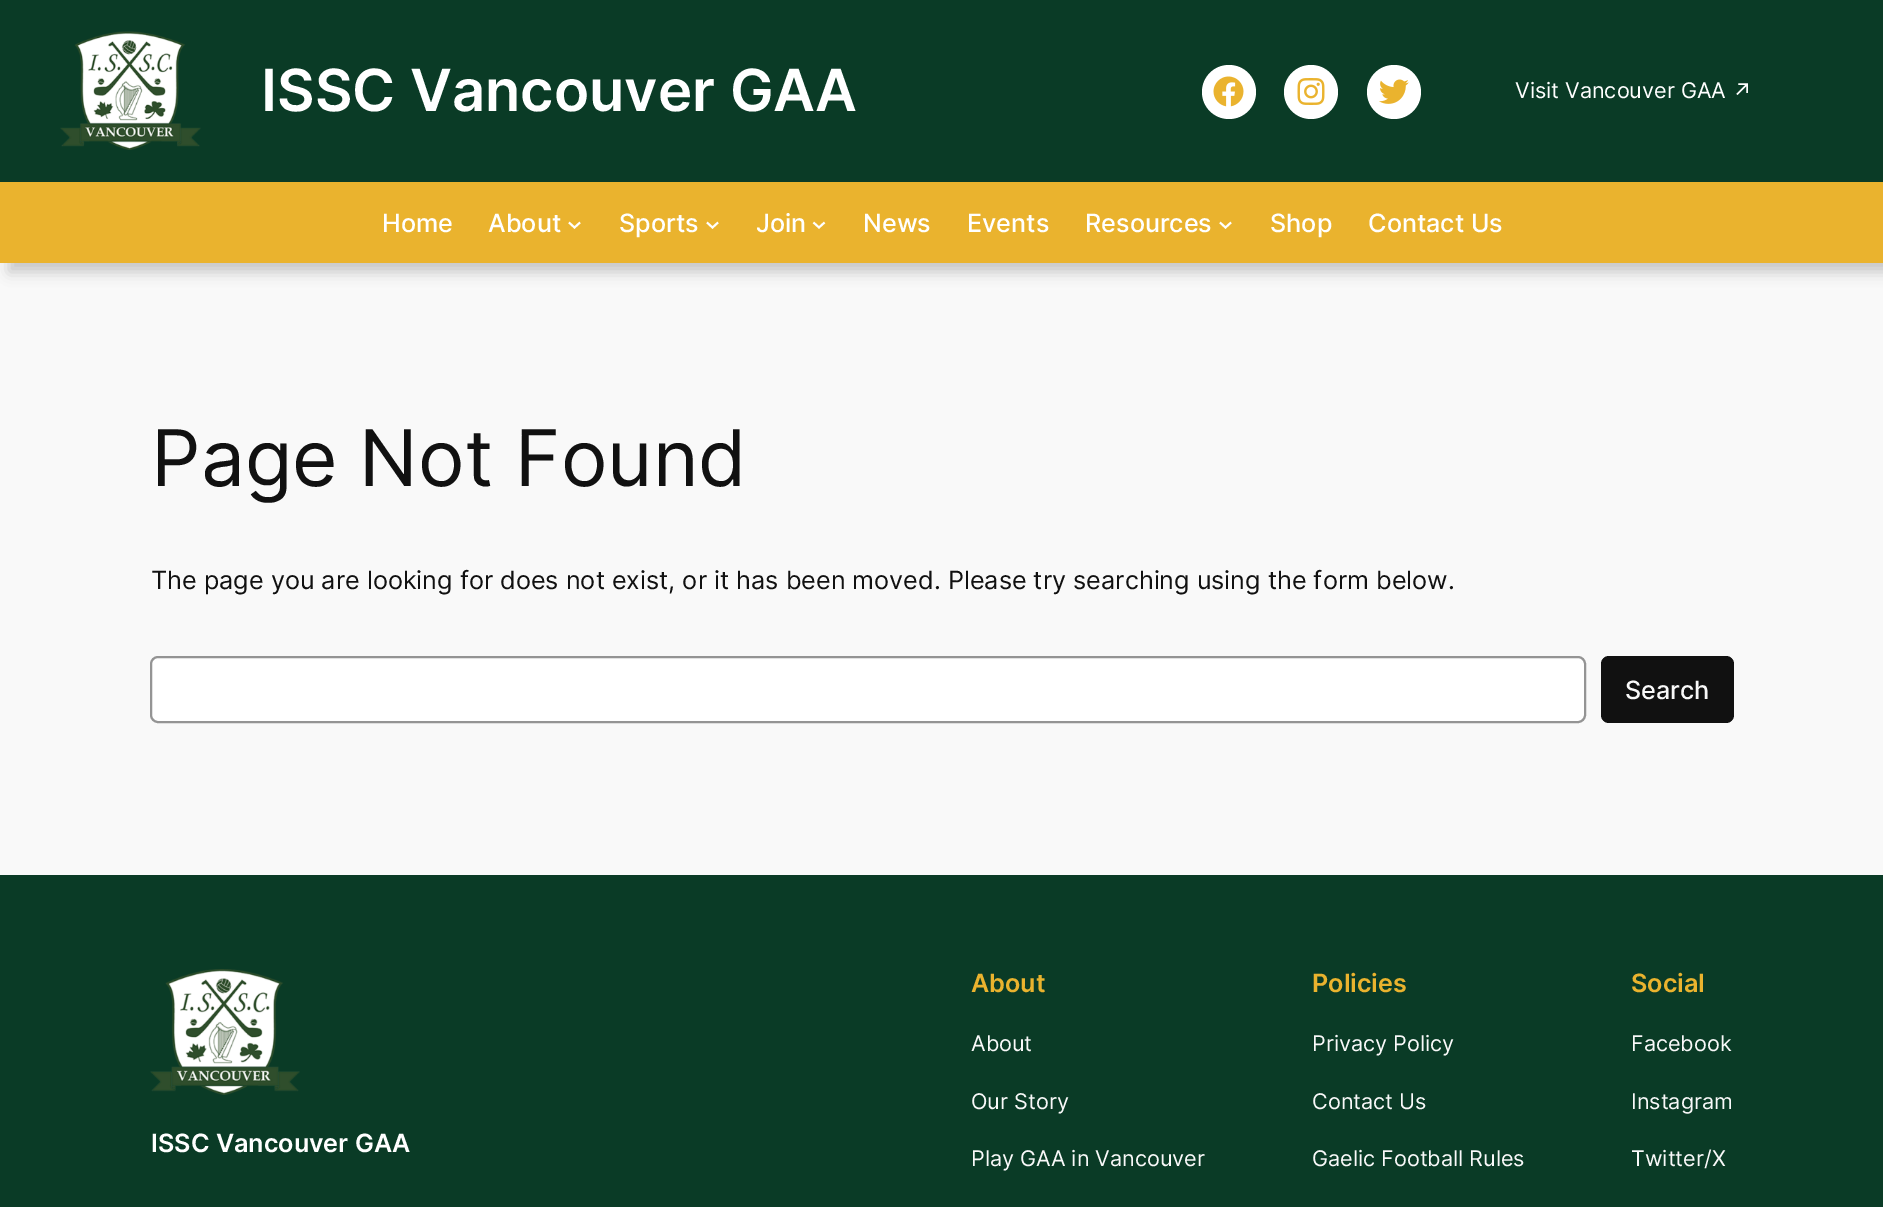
%!PS
<< /PageSize [1883 1207] /PageUsesTransparency true >> setpagedevice
/rgb { dup -16 bitshift 255 div exch dup -8 bitshift 255 and 255 div exch 255 and 255 div setrgbcolor } def
/font { [ exch dup neg 0 0 3 -1 roll 0 0 ] selectfont } def
/text { moveto show } def
/alpha { dup .setfillconstantalpha .setstrokeconstantalpha } def
/circle { newpath 0 360 arc closepath } def
/roundrect { 5 dict begin { /r /h /w /y /x } { exch def } forall
  x r add y moveto x w add y 2 copy h add r arct x w add y h add x 1 index r arct
  x y h add x y r arct x y 2 copy exch w add exch r arct closepath end } def
/shadow { 12 dict begin { /a /b /q /h /w /y /x } { exch def } forall gsave /was 0 def
  9 -2 -9 { dup b mul 4 div /e exch def 1 sub .425 mul 2.718 exch exp 1 add a .99 .min exch div /now exch def
    1 1 now sub 1 was sub div sub alpha /was now def
    w h .min e 2 mul add 0 gt { x e sub y e sub w e 2 mul add h e 2 mul add
      q e add b .6 mul add w h .min 2 div e add .min 0 .max roundrect fill } if } for grestore end } def
/picture { 5 dict begin { /h /w /y /x /name } { exch def } forall
  gsave x y translate w h scale
  w h 8 [w 0 0 h 0 0] name (r) file false 3 colorimage grestore end } def
0 .pushpdf14devicefilter
0 1207 translate 1 -1 scale
4 setmiterlimit
/s1 { /Inter-SemiBold 58 font 16#FFFFFF rgb } def
/s2 { /Inter-Regular 21.6 font 16#FFFFFF rgb } def
/s3 { /Inter-Medium 25.2 font 16#FFFFFF rgb } def
/s4 { /Inter-Regular 78 font 16#111111 rgb } def
/s5 { /Inter-Regular 25.2 font 16#111111 rgb } def
/s6 { /Inter-Medium 25.2 font 16#F9F9F9 rgb } def
/s7 { /Inter-SemiBold 25.2 font 16#FFFFFF rgb } def
/s8 { /Inter-SemiBold 25.2 font 16#EAB32E rgb } def
/s9 { /Inter-Regular 21.6 font 16#F9F9F9 rgb } def
16#F9F9F9 rgb
0 0 1883 1207 rectfill
16#0A3B26 rgb
0 0 1883 182 rectfill
(pic1.raw) 60 31 141 119 picture
s1
(ISSC Vancouver GAA) 261 111 text
1229 92 27 circle fill
(pic2.raw) 1213 76 31 31 picture
1311 92 27 circle fill
(pic3.raw) 1297 78 28 27 picture
1394 92 27 circle fill
(pic4.raw) 1379 79 30 25 picture
s2
(Visit Vancouver GAA) 1515 98 text
(↗) 1732 99 text
16#000000 rgb
9 191 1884 81 0 7 0.2 shadow
16#EAB32E rgb
0 182 1883 81 rectfill
s3
(Home) 382 232 text
(About) 488 232 text
1.9 setlinewidth
569 222.5 moveto 574.5 227.5 lineto 580 222.5 lineto stroke
(Sports) 619 232 text
707 222.5 moveto 712.5 227.5 lineto 718 222.5 lineto stroke
(Join) 756 232 text
813.5 222.5 moveto 819 227.5 lineto 824.5 222.5 lineto stroke
(News) 863 232 text
(Events) 967 232 text
(Resources) 1085 232 text
1220 222.5 moveto 1225.5 227.5 lineto 1231 222.5 lineto stroke
(Shop) 1270 232 text
(Contact Us) 1368 232 text
s4
(Page Not Found) 151 486 text
s5
(The page you are looking for does not exist, or it has been moved. Please try searching using the form below.) 151 589 text
16#FFFFFF rgb
151 657 1434 65 7 roundrect gsave fill grestore
16#949494 rgb
2 setlinewidth
stroke
16#111111 rgb
1601 656 133 67 8 roundrect fill
s6
(Search) 1625 699 text
16#0A3B26 rgb
0 875 1883 332 rectfill
(pic5.raw) 150 969 150 126 picture
s7
(ISSC Vancouver GAA) 151 1152 text
s8
(About) 971 992 text
s9
(About) 971 1051 text
(Our Story) 971 1109 text
(Play GAA in Vancouver) 971 1166 text
s8
(Policies) 1312 992 text
s9
(Privacy Policy) 1312 1051 text
(Contact Us) 1312 1109 text
(Gaelic Football Rules) 1312 1166 text
s8
(Social) 1631 992 text
s9
(Facebook) 1631 1051 text
(Instagram) 1631 1109 text
(Twitter/X) 1631 1166 text
.poppdf14devicefilter showpage
